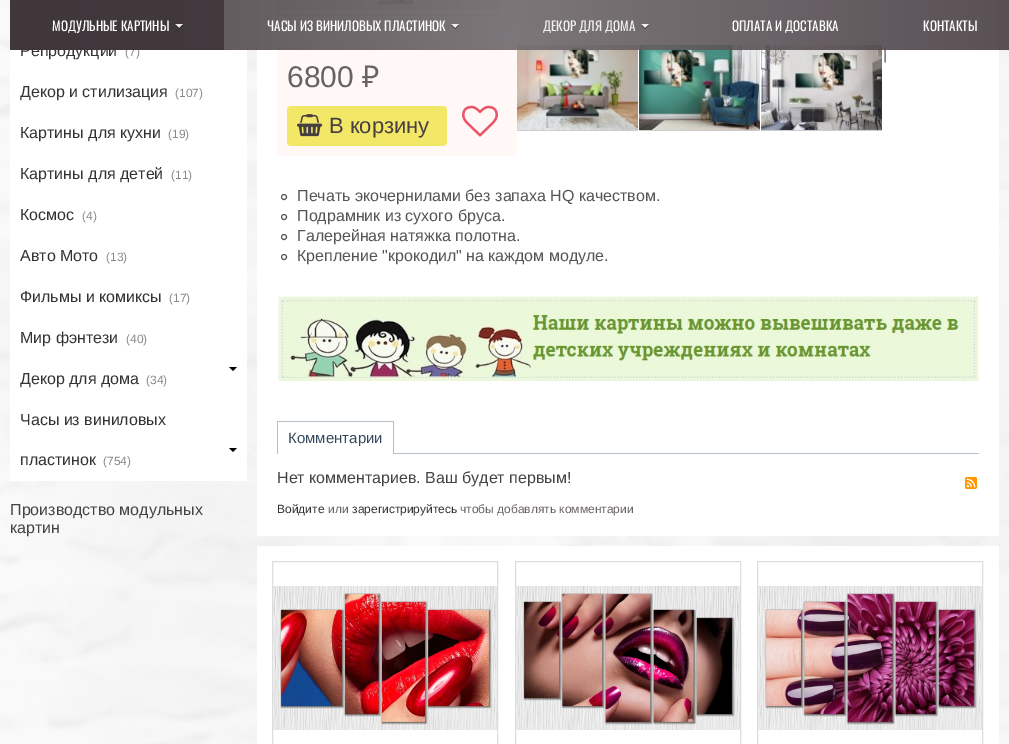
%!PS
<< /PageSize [1009 744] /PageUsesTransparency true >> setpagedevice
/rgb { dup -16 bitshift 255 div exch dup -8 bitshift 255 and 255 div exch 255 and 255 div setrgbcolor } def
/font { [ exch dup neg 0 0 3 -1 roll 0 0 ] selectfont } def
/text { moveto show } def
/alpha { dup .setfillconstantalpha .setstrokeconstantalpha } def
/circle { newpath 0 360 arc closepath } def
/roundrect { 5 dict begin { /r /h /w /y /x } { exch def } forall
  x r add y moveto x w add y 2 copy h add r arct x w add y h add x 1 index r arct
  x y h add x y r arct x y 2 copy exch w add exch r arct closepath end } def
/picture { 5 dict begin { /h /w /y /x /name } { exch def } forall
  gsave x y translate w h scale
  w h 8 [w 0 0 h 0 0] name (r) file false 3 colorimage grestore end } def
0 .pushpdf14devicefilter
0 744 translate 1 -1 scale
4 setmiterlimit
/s1 { /LiberationSans-Regular 16 font 16#333333 rgb } def
/s2 { /LiberationSans-Regular 12 font 16#888888 rgb } def
/s3 { /LiberationSans-Regular 16 font 16#555555 rgb } def
/s4 { /Oswald-Regular 13 font 16#FFFFFF rgb } def
/s5 { /Oswald-Regular 13 font 16#F1F1F1 rgb } def
/s6 { /LiberationSans-Regular 16 font 16#444444 rgb } def
/s7 { /LiberationSans-Regular 30 font 16#696265 rgb } def
/s8 { /NotoSans-Regular 30 font 16#696265 rgb } def
/s9 { /LiberationSans-Regular 22 font 16#473E42 rgb } def
/s10 { /LiberationSans-Regular 15 font 16#34495E rgb } def
/s11 { /LiberationSans-Regular 12 font 16#333333 rgb } def
/s12 { /LiberationSans-Regular 12 font 16#696265 rgb } def
16#FFFFFF rgb
0 0 1009 744 rectfill
(pic1.raw) 0 0 1009 744 picture
10 0 237 481 rectfill
s1
(Репродукции) 20 56 text
s2
(\(7\)) 125 56 text
16#FFFFFF rgb
257 0 742 536 rectfill
16#DDDDDD rgb
277.5 -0.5 221 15 rectstroke
(pic5.raw) 278 0 220 10 picture
16#F9F9F9 rgb
500 0 220 29 rectfill
(pic6.raw) 517 45 121 85 picture
(pic7.raw) 639 45 121 85 picture
(pic8.raw) 761 45 121 85 picture
s3
(|) 883 59 text
16#FFF8F7 rgb
277 45 240 111 rectfill
0.9 alpha
gsave 10 0 moveto 1009 0 lineto 1009 50 lineto 10 50 lineto closepath clip newpath
<< /ShadingType 2 /ColorSpace /DeviceRGB /Coords [10 25 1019 25] /Extend [true true] /Function << /FunctionType 3 /Domain [0 1] /Functions [<< /FunctionType 2 /Domain [0 1] /C0 [0.243 0.208 0.224] /C1 [0.435 0.408 0.42] /N 1 >> << /FunctionType 2 /Domain [0 1] /C0 [0.435 0.408 0.42] /C1 [0.275 0.239 0.255] /N 1 >>] /Bounds [0.5] /Encode [0 1 0 1] >> >> shfill grestore
16#3E3539 rgb
10 0 214 50 rectfill
1 alpha
s4
(МОДУЛЬНЫЕ КАРТИНЫ) 52 31 text
(pic2.raw) 175 24 8 5 picture
(ЧАСЫ ИЗ ВИНИЛОВЫХ ПЛАСТИНОК) 267 31 text
(pic3.raw) 451 24 8 5 picture
s5
(ДЕКОР ДЛЯ ДОМА) 543 31 text
(pic4.raw) 641 24 8 5 picture
s4
(ОПЛАТА И ДОСТАВКА) 732 31 text
(КОНТАКТЫ) 923 31 text
s1
(Декор и стилизация) 20 97 text
s2
(\(107\)) 175 97 text
s1
(Картины для кухни) 20 138 text
s2
(\(19\)) 168 138 text
s1
(Картины для детей) 20 179 text
s2
(\(11\)) 171 179 text
s1
(Космос) 20 220 text
s2
(\(4\)) 82 220 text
s1
(Авто Мото) 20 261 text
s2
(\(13\)) 106 261 text
s1
(Фильмы и комиксы) 20 302 text
s2
(\(17\)) 169 302 text
s1
(Мир фэнтези) 20 343 text
s2
(\(40\)) 126 343 text
16#000000 rgb
229 367 moveto 237 367 lineto 233 371 lineto closepath fill
s1
(Декор для дома) 20 384 text
s2
(\(34\)) 146 384 text
s1
(Часы из виниловых) 20 425 text
16#000000 rgb
229 448 moveto 237 448 lineto 233 452 lineto closepath fill
s1
(пластинок) 20 465 text
s2
(\(754\)) 103 465 text
s6
(Производство модульных) 10 515 text
(картин) 10 533 text
16#CCCCCC rgb
517 130 121 1 rectfill
639 130 121 1 rectfill
761 130 121 1 rectfill
s7
(6800) 287 87 text
s8
(₽) 362 87 text
16#F3E768 rgb
287 106 160 40 4 roundrect fill
(pic9.raw) 297 114 26 23 picture
s9
(В корзину) 329 133 text
(pic10.raw) 462 105 36 32 picture
16#555555 rgb
284 197 2.5 circle stroke
s3
(Печать экочернилами без запаха HQ качеством.) 297 201 text
284 217 2.5 circle stroke
(Подрамник из сухого бруса.) 297 221 text
284 237 2.5 circle stroke
(Галерейная натяжка полотна.) 297 241 text
284 257 2.5 circle stroke
(Крепление "крокодил" на каждом модуле.) 297 261 text
(pic11.raw) 277 296 702 85 picture
16#B3C2C9 rgb
394 453 585 1 rectfill
277 421 117 1 rectfill
393 421 1 33 rectfill
277 421 1 33 rectfill
s10
(Комментарии) 288 443 text
s6
(Нет комментариев. Ваш будет первым!) 277 483 text
s11
(Войдите) 277 513 text
s12
(или) 328 513 text
s11
(зарегистрируйтесь) 352 513 text
s12
(чтобы добавлять комментарии) 460 513 text
(pic12.raw) 965 477 12 12 picture
16#FFFFFF rgb
257 546 742 198 rectfill
16#DDDDDD rgb
272.5 561.5 225 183 rectstroke
(pic13.raw) 273 586 224 144 picture
515.5 561.5 225 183 rectstroke
(pic14.raw) 516 586 224 144 picture
757.5 561.5 225 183 rectstroke
(pic15.raw) 758 586 224 144 picture
.poppdf14devicefilter showpage
